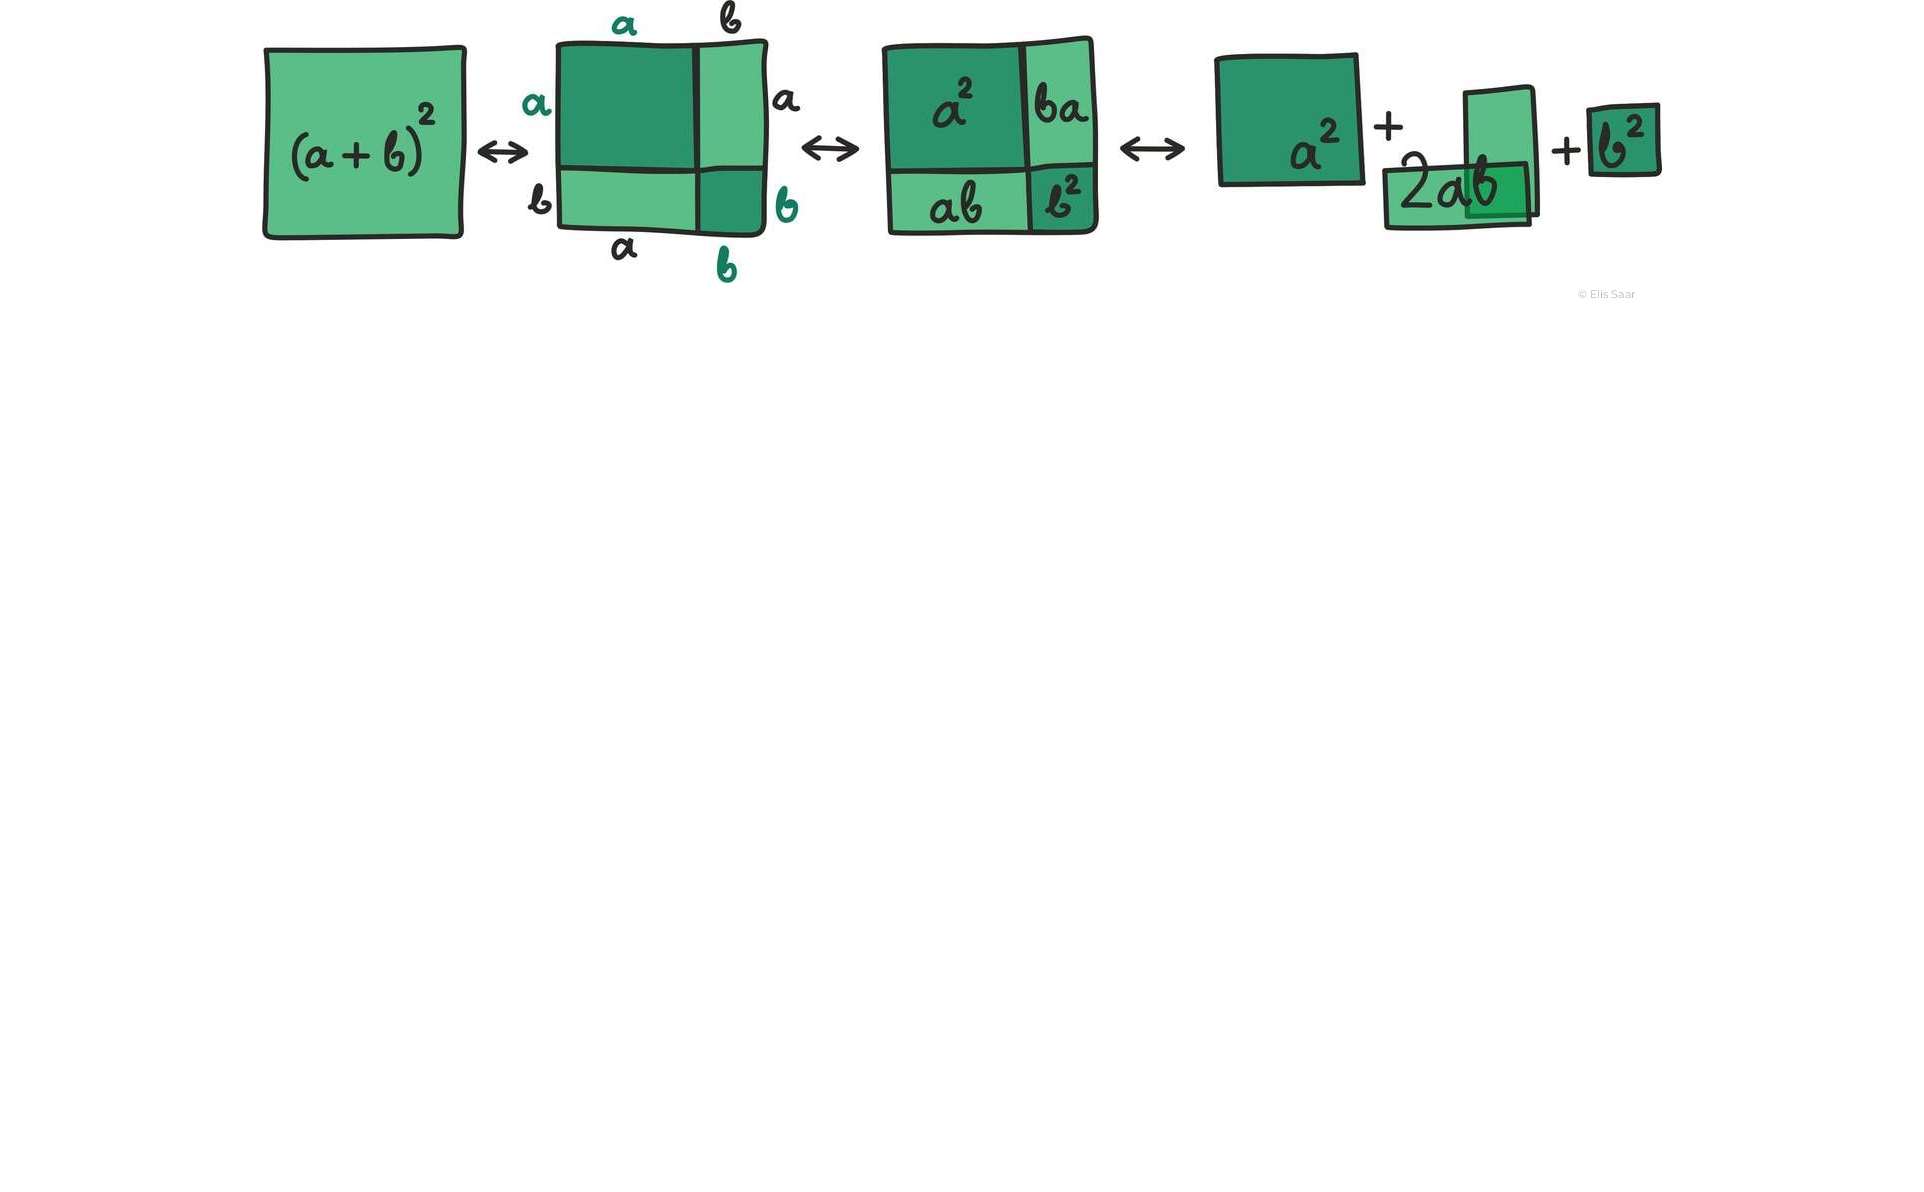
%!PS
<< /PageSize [1924 1192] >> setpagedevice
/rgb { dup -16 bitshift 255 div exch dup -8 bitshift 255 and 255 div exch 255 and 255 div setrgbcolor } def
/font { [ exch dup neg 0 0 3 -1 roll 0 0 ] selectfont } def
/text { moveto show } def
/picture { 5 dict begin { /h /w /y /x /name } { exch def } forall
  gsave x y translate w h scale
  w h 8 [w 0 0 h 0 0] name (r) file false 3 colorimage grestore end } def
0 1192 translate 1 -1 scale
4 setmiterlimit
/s1 { /Montserrat-Regular 11 font 16#B9B9BA rgb } def
16#FFFFFF rgb
0 0 1924 1192 rectfill
(pic1.raw) 262 0 1400 283 picture
s1
(© Elis Saar) 1578 298 text
showpage
